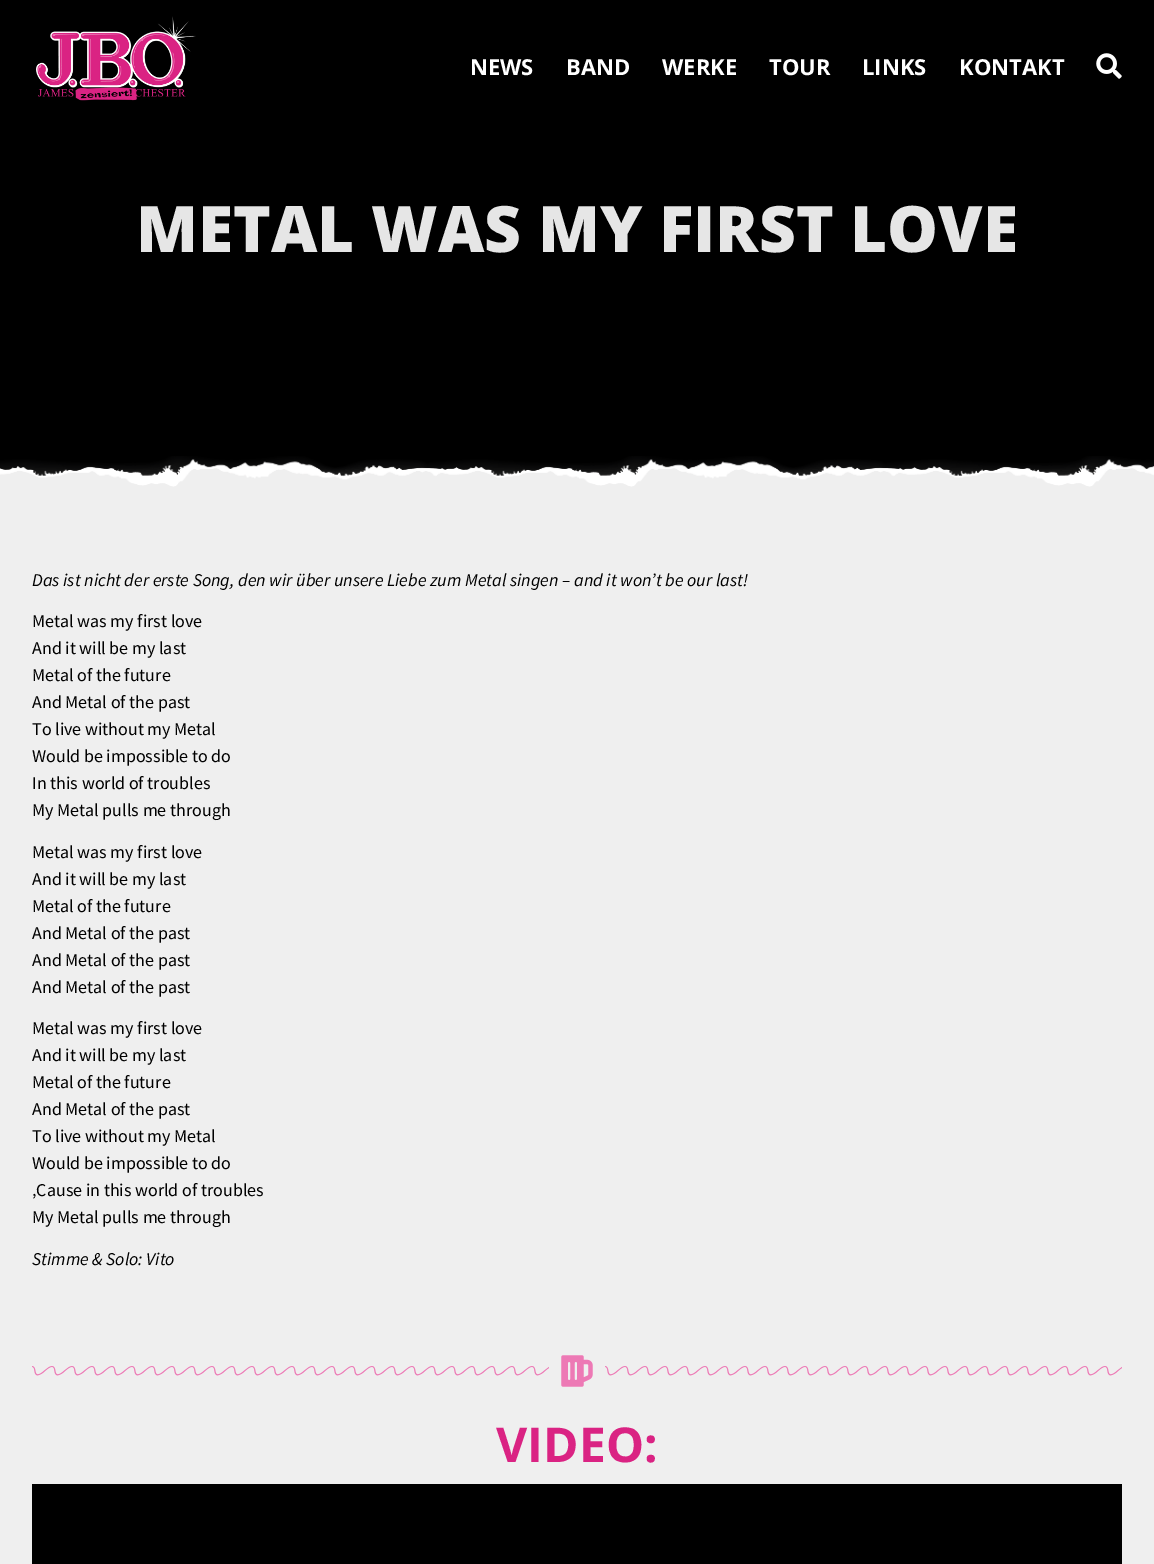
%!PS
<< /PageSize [1154 1564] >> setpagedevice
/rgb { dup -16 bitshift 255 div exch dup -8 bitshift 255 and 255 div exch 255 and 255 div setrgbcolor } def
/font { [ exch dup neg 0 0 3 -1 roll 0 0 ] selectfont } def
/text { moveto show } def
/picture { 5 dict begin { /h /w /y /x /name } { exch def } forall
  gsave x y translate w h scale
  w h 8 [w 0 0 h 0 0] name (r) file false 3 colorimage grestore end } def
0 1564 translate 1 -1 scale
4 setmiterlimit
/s1 { /OpenSans-Bold 22 font 16#FFFFFF rgb } def
/s2 { /OpenSans-ExtraBold 64 font 16#E6E6E6 rgb } def
/s3 { /SourceSansPro-Italic 18 font 16#000000 rgb } def
/s4 { /SourceSansPro-Regular 18 font 16#000000 rgb } def
/s5 { /OpenSans-Bold 48 font 16#DA2383 rgb } def
16#000000 rgb
0 0 1154 1564 rectfill
(pic1.raw) 36 16 160 85 picture
s1
(NEWS) 470 75 text
(BAND) 566 75 text
(WERKE) 662 75 text
(TOUR) 769 75 text
(LINKS) 862 75 text
(KONTAKT) 959 75 text
(pic2.raw) 1096 53 26 26 picture
s2
(METAL WAS MY FIRST LOVE) 136 252 text
(pic3.raw) 0 456 1154 46 picture
16#EFEFEF rgb
0 502 1154 1062 rectfill
s3
(Das ist nicht der erste Song, den wir über unsere Liebe zum Metal singen – and it won’t be our last!) 32 586 text
s4
(Metal was my first love) 32 627 text
(And it will be my last) 32 654 text
(Metal of the future) 32 681 text
(And Metal of the past) 32 708 text
(To live without my Metal) 32 735 text
(Would be impossible to do) 32 762 text
(In this world of troubles) 32 789 text
(My Metal pulls me through) 32 816 text
(Metal was my first love) 32 858 text
(And it will be my last) 32 885 text
(Metal of the future) 32 912 text
(And Metal of the past) 32 939 text
(And Metal of the past) 32 966 text
(And Metal of the past) 32 993 text
(Metal was my first love) 32 1034 text
(And it will be my last) 32 1061 text
(Metal of the future) 32 1088 text
(And Metal of the past) 32 1115 text
(To live without my Metal) 32 1142 text
(Would be impossible to do) 32 1169 text
(‚Cause in this world of troubles) 32 1196 text
(My Metal pulls me through) 32 1223 text
s3
(Stimme & Solo: Vito) 32 1265 text
(pic4.raw) 32 1366 517 10 picture
(pic5.raw) 561 1355 32 32 picture
(pic4.raw) 605 1366 517 10 picture
s5
(VIDEO:) 496 1462 text
16#000000 rgb
32 1484 1090 80 rectfill
showpage
